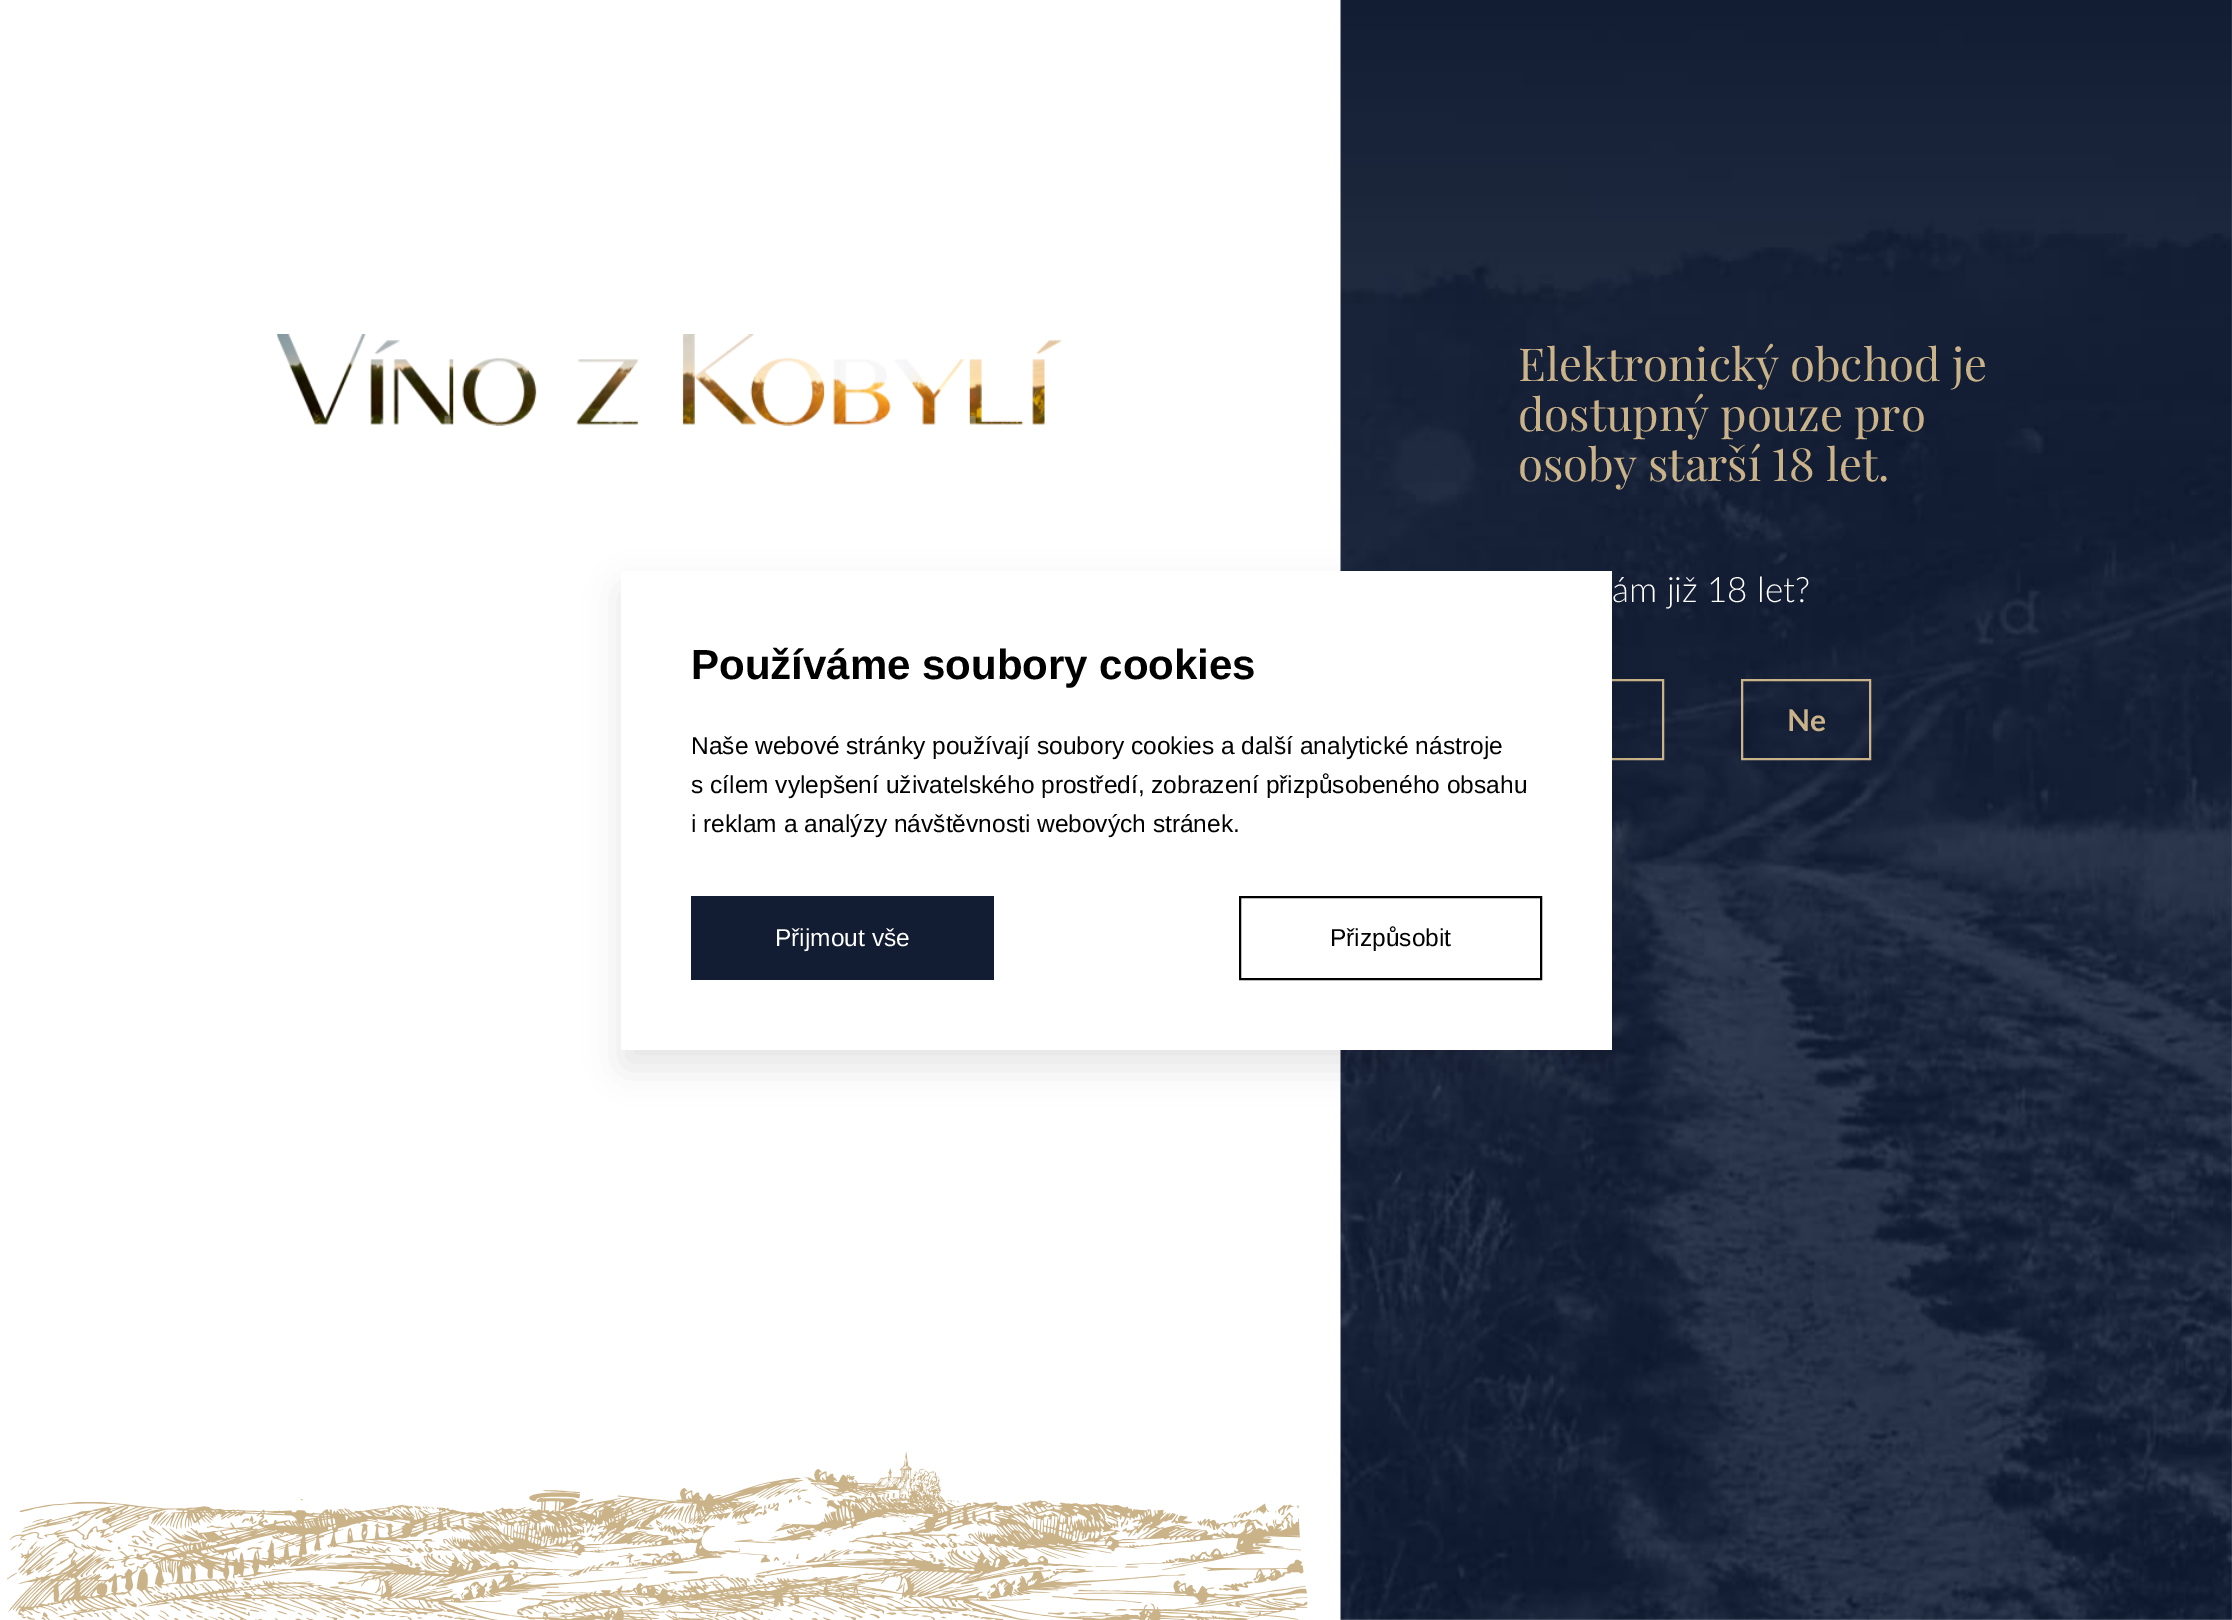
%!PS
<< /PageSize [2232 1620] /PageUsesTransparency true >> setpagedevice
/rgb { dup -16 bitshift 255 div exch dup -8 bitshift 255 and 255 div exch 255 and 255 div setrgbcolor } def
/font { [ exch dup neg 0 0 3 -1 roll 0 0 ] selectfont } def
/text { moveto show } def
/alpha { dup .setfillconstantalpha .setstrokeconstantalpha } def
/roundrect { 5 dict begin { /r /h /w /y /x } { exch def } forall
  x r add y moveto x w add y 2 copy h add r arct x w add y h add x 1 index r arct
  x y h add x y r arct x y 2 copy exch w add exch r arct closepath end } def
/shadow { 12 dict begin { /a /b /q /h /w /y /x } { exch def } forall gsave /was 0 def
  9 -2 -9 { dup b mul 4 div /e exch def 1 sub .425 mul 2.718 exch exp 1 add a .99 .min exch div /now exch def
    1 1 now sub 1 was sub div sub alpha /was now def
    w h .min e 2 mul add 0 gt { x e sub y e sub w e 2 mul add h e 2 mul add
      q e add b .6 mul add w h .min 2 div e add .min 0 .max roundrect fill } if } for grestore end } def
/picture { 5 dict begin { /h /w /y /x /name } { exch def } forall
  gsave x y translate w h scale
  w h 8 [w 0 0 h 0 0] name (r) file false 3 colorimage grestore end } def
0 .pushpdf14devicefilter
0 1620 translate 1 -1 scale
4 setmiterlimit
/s1 { /PlayfairDisplay-Regular 45.5 font 16#CAB289 rgb } def
/s2 { /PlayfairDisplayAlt-Regular 45.5 font 16#CAB289 rgb } def
/s3 { /Lato-Light 35 font 16#FFFFFF rgb } def
/s4 { /Lato-Bold 30 font 16#CAB289 rgb } def
/s5 { /LiberationSans-Bold 42 font 16#000000 rgb } def
/s6 { /LiberationSans-Regular 24.5 font 16#000000 rgb } def
/s7 { /LiberationSans-Regular 24.5 font 16#FFFFFF rgb } def
16#FFFFFF rgb
0 0 2232 1620 rectfill
(pic1.raw) 277 334 785 92 picture
(pic2.raw) 6 1452 1302 168 picture
(pic3.raw) 1340 0 892 1620 picture
s1
(Elektronický obchod je) 1518 381 text
(dostupný pouze pro) 1518 431 text
s2
(osoby starší 18 let.) 1518 481 text
s3
(ám již 18 let?) 1612 602 text
16#CAB289 rgb
2 setlinewidth
1520 680 143 79 rectstroke
1742 680 128 79 rectstroke
s4
(Ne) 1787 731 text
16#000000 rgb
621 588 991 480 4 17.5 0.1 shadow
16#FFFFFF rgb
625 571 moveto 1612 571 lineto 1612 1050 lineto 621 1050 lineto 621 575 lineto 621 573 623 571 625 571 curveto closepath fill
s5
(Používáme soubory cookies) 691 679 text
s6
(Naše webové stránky používají soubory cookies a další analytické nástroje) 691 754 text
(s cílem vylepšení uživatelského prostředí, zobrazení přizpůsobeného obsahu) 691 793 text
(i reklam a analýzy návštěvnosti webových stránek.) 691 832 text
16#121D33 rgb
691 896 303 84 rectfill
s7
(Přijmout vše) 775 946 text
16#000000 rgb
1240 897 301 82 rectstroke
(Přizpůsobit) 1330 946 text
.poppdf14devicefilter showpage
